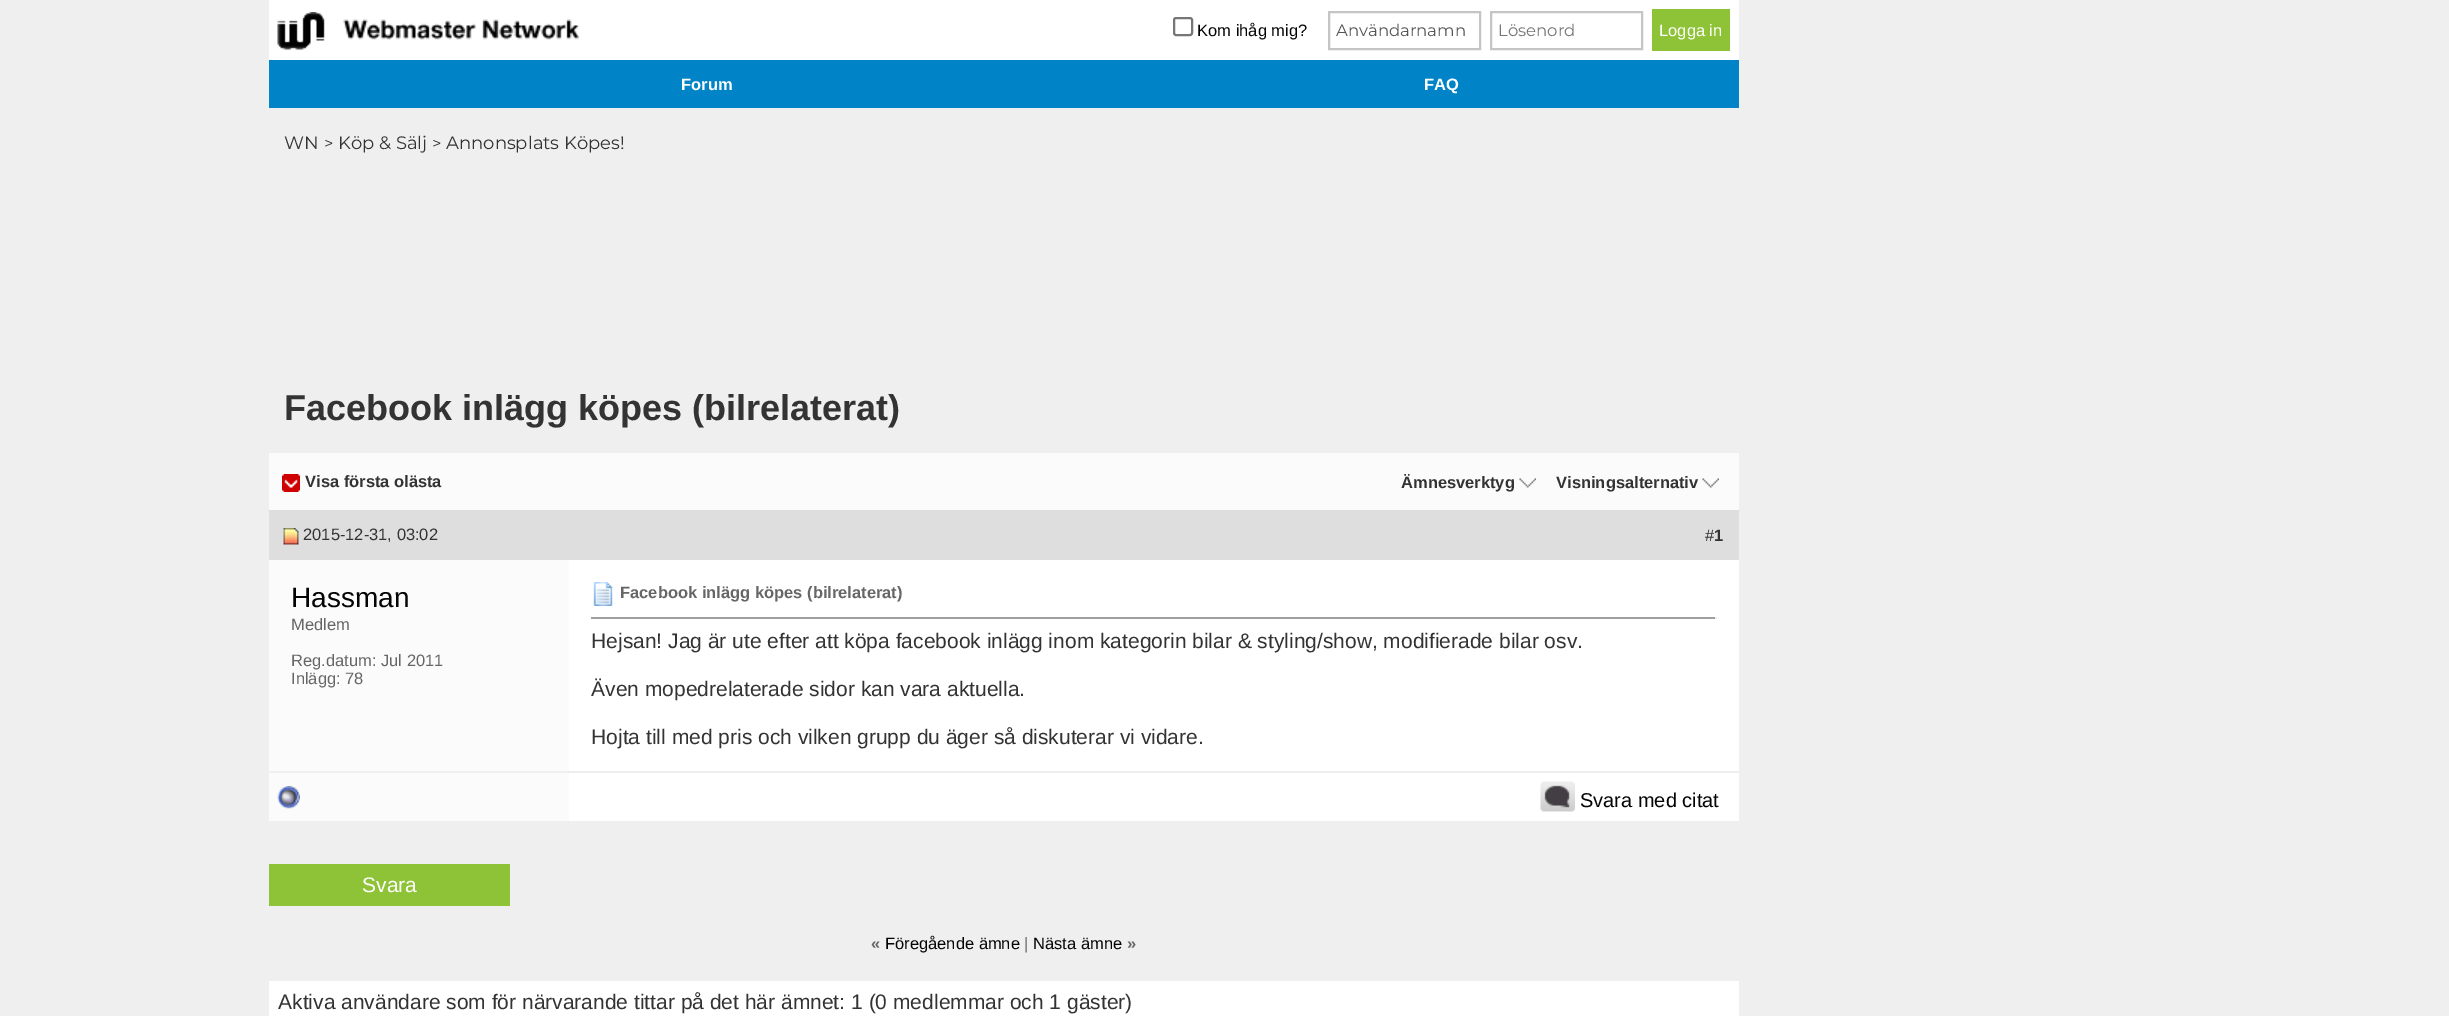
%!PS
<< /PageSize [2449 1016] >> setpagedevice
/rgb { dup -16 bitshift 255 div exch dup -8 bitshift 255 and 255 div exch 255 and 255 div setrgbcolor } def
/font { [ exch dup neg 0 0 3 -1 roll 0 0 ] selectfont } def
/text { moveto show } def
/roundrect { 5 dict begin { /r /h /w /y /x } { exch def } forall
  x r add y moveto x w add y 2 copy h add r arct x w add y h add x 1 index r arct
  x y h add x y r arct x y 2 copy exch w add exch r arct closepath end } def
/picture { 5 dict begin { /h /w /y /x /name } { exch def } forall
  gsave x y translate w h scale
  w h 8 [w 0 0 h 0 0] name (r) file false 3 colorimage grestore end } def
0 1016 translate 1 -1 scale
4 setmiterlimit
/s1 { /LiberationSans-Regular 16.5 font 16#040404 rgb } def
/s2 { /Montserrat-Regular 16.5 font 16#555555 rgb } def
/s3 { /Montserrat-Regular 16.5 font 16#757575 rgb } def
/s4 { /LiberationSans-Regular 16.5 font 16#FFFFFF rgb } def
/s5 { /LiberationSans-Bold 16.5 font 16#FFFFFF rgb } def
/s6 { /Montserrat-Regular 18 font 16#333333 rgb } def
/s7 { /Montserrat-Regular 16.5 font 16#333333 rgb } def
/s8 { /LiberationSans-Bold 36 font 16#333333 rgb } def
/s9 { /LiberationSans-Bold 16.5 font 16#333333 rgb } def
/s10 { /LiberationSans-Regular 16.5 font 16#333333 rgb } def
/s11 { /LiberationSans-Regular 28 font 16#040404 rgb } def
/s12 { /LiberationSans-Regular 16.5 font 16#666666 rgb } def
/s13 { /LiberationSans-Bold 16.5 font 16#666666 rgb } def
/s14 { /LiberationSans-Regular 21 font 16#333333 rgb } def
/s15 { /LiberationSans-Regular 20 font 16#040404 rgb } def
/s16 { /LiberationSans-Regular 21 font 16#FFFFFF rgb } def
16#EFEFEF rgb
0 0 2449 1016 rectfill
16#FFFFFF rgb
269 0 1470 60 rectfill
(pic1.raw) 277 12 302 38 picture
16#767676 rgb
2 setlinewidth
1174 18 18 17 2 roundrect stroke
s1
(Kom ihåg mig?) 1197 36 text
16#C5C5C5 rgb
1329 12 151 37 rectstroke
s2
(Användarnamn) 1336 36 text
16#C5C5C5 rgb
1491 12 151 37 rectstroke
s3
(Lösenord) 1498 36 text
16#8EC237 rgb
1652 9 78 42 rectfill
s4
(Logga in) 1659 36 text
16#0083C7 rgb
269 60 1470 48 rectfill
s5
(Forum) 681 90 text
(FAQ) 1424 90 text
s6
(WN) 284 149 text
s7
(>) 324 149 text
s6
(Köp & Sälj) 338 149 text
s7
(>) 432 149 text
s6
(Annonsplats Köpes!) 446 149 text
s8
(Facebook inlägg köpes \(bilrelaterat\)) 284 420 text
16#FBFBFB rgb
269 453 1470 57 rectfill
(pic2.raw) 282 474 18 18 picture
s9
(Visa första olästa) 305 487 text
(Ämnesverktyg) 1401 488 text
(pic3.raw) 1519 478 17 10 picture
(Visningsalternativ) 1556 488 text
(pic4.raw) 1702 478 17 10 picture
16#FFFFFF rgb
569 560 1170 261 rectfill
16#DEDEDE rgb
269 510 1470 50 rectfill
(pic5.raw) 283 528 16 17 picture
s10
(2015-12-31, 03:02) 303 540 text
(#) 1705 541 text
s9
(1) 1714 541 text
16#FBFBFB rgb
269 560 300 211 rectfill
s11
(Hassman) 291 607 text
s12
(Medlem) 291 630 text
(Reg.datum: Jul 2011) 291 666 text
(Inlägg: 78) 291 684 text
16#EEEEEE rgb
569 771 1171 2 rectfill
(pic6.raw) 593 582 20 24 picture
s13
(Facebook inlägg köpes \(bilrelaterat\)) 620 598 text
16#9F9F9F rgb
591 617 1125 2 rectfill
16#EEEEEE rgb
1715 617 2 2 rectfill
s14
(Hejsan! Jag är ute efter att köpa facebook inlägg inom kategorin bilar & styling/show, modifierade bilar osv.) 591 648 text
(Även mopedrelaterade sidor kan vara aktuella.) 591 696 text
(Hojta till med pris och vilken grupp du äger så diskuterar vi vidare.) 591 744 text
16#FBFBFB rgb
269 773 300 48 rectfill
(pic7.raw) 277 786 23 23 picture
(pic8.raw) 1540 781 35 31 picture
s15
(Svara med citat) 1580 807 text
16#8EC237 rgb
269 864 241 42 rectfill
s16
(Svara) 362 892 text
s13
(«) 871 949 text
s1
(Föregående ämne) 885 949 text
s12
(|) 1024 949 text
s1
(Nästa ämne) 1033 949 text
s13
(») 1127 949 text
16#FFFFFF rgb
269 981 1470 35 rectfill
s14
(Aktiva användare som för närvarande tittar på det här ämnet: 1 \(0 medlemmar och 1 gäster\)) 278 1009 text
showpage
